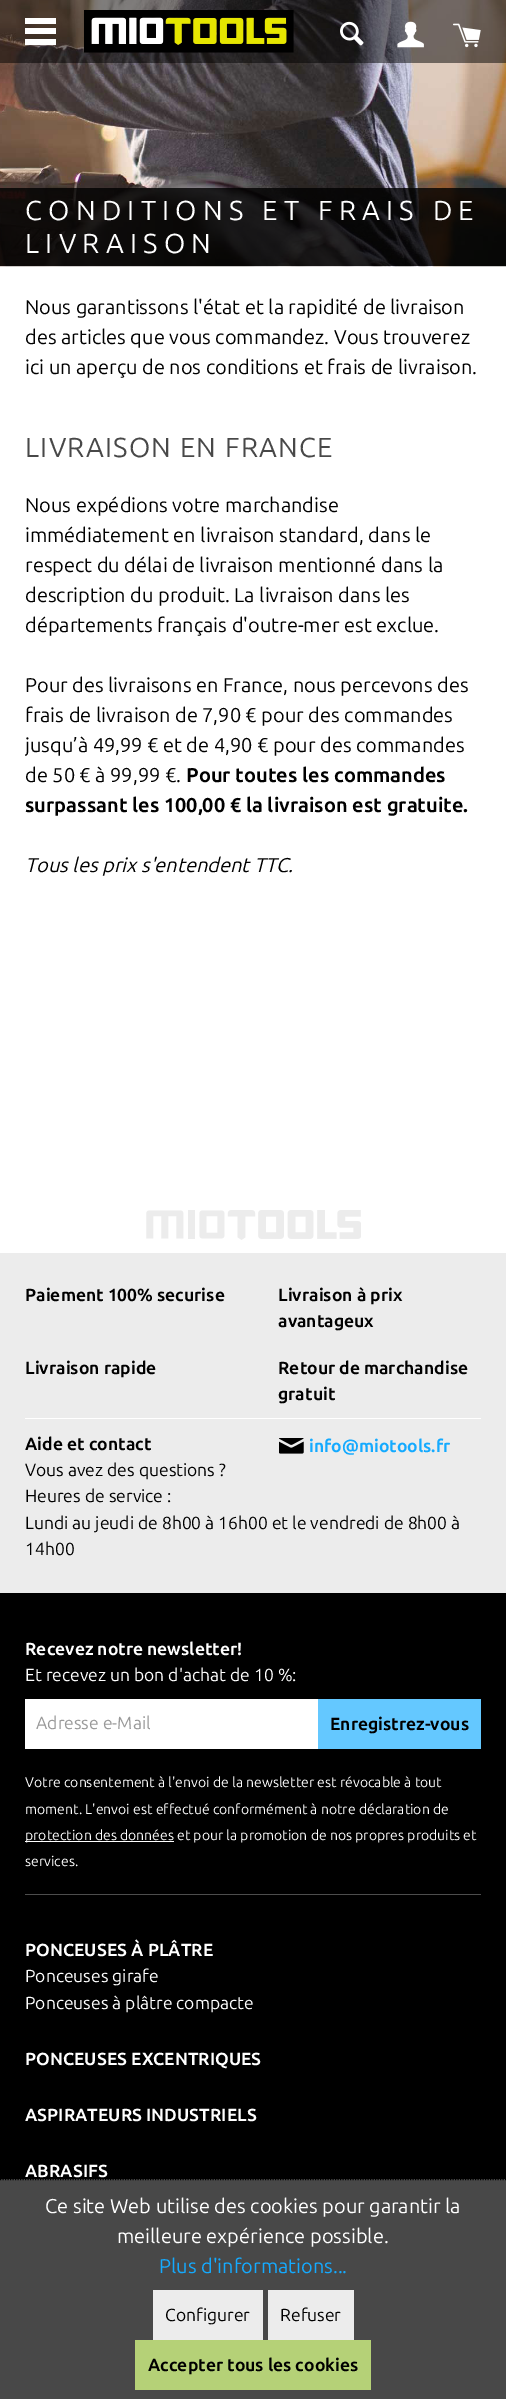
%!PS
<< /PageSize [506 2399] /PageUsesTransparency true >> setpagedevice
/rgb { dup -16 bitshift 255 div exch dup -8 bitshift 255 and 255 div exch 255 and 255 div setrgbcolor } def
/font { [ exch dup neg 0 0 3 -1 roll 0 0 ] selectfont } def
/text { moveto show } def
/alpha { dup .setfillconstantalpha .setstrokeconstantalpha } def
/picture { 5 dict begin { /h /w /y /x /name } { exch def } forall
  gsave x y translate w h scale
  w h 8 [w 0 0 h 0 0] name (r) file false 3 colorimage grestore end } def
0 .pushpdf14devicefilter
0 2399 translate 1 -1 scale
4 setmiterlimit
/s1 { /Ubuntu-Regular 20 font 16#000000 rgb } def
/s2 { /Ubuntu-Bold 20 font 16#000000 rgb } def
/s3 { /Ubuntu-Italic 20 font 16#000000 rgb } def
/s4 { /Ubuntu-Bold 17.5 font 16#000000 rgb } def
/s5 { /Ubuntu-Regular 17.5 font 16#000000 rgb } def
/s6 { /Ubuntu-Bold 17.5 font 16#14AAFF rgb } def
/s7 { /Ubuntu-Bold 17.5 font 16#FFFFFF rgb } def
/s8 { /Ubuntu-Regular 17.5 font 16#FFFFFF rgb } def
/s9 { /Ubuntu-Regular 17.5 font 16#999999 rgb } def
/s10 { /Ubuntu-Regular 14 font 16#FFFFFF rgb } def
/s11 { /Ubuntu-Regular 20 font 16#FFFFFF rgb } def
/s12 { /Ubuntu-Regular 20 font 16#14AAFF rgb } def
16#FFFFFF rgb
0 0 506 2399 rectfill
(pic1.raw) 0 0 506 267 picture
0.5 alpha
16#000000 rgb
0 0 506 63 rectfill
1 alpha
16#FFFFFF rgb
25 18 31 6 rectfill
25 28 31 6 rectfill
25 39 31 6 rectfill
(pic2.raw) 84 10 210 43 picture
(pic3.raw) 340 21 24 25 picture
(pic4.raw) 397 21 27 27 picture
(pic5.raw) 453 23 28 25 picture
0.8 alpha
16#000000 rgb
0 188 506 78 rectfill
/Ubuntu-Regular 27.5 font
1 alpha
16#FFFFFF rgb
25 220 moveto 6.25 0 (CONDITIONS ET FRAIS DE) ashow
25 253 moveto 6.25 0 (LIVRAISON) ashow
s1
(Nous garantissons l'état et la rapidité de livraison) 25 314 text
(des articles que vous commandez. Vous trouverez) 25 344 text
(ici un aperçu de nos conditions et frais de livraison.) 25 374 text
/Ubuntu-Regular 27.5 font
16#484848 rgb
25 457 moveto 1.25 0 (LIVRAISON EN FRANCE) ashow
s1
(Nous expédions votre marchandise) 25 512 text
(immédiatement en livraison standard, dans le) 25 542 text
(respect du délai de livraison mentionné dans la) 25 572 text
(description du produit. La livraison dans les) 25 602 text
(départements français d'outre-mer est exclue.) 25 632 text
(Pour des livraisons en France, nous percevons des) 25 692 text
(frais de livraison de 7,90 € pour des commandes) 25 722 text
gsave
25 406 456 592 rectclip
(jusqu’à 49,99 € et de 4,90 € pour des commandes) 25 752 text
grestore
(de 50 € à 99,99 €.) 25 782 text
s2
(Pour toutes les commandes) 186 782 text
(surpassant les 100,00 € la livraison est gratuite.) 25 812 text
s3
(Tous les prix s'entendent TTC.) 25 872 text
(pic6.raw) 146 1210 215 30 picture
16#ECECEC rgb
0 1253 506 340 rectfill
s4
(Paiement 100% securise) 25 1301 text
(Livraison à prix) 278 1301 text
(avantageux) 278 1327 text
(Livraison rapide) 25 1374 text
(Retour de marchandise) 278 1374 text
(gratuit) 278 1400 text
16#FFFFFF rgb
25 1418 456 1 rectfill
s4
(Aide et contact) 25 1450 text
s5
(Vous avez des questions ?) 25 1476 text
(pic7.raw) 279 1438 25 16 picture
s6
(info@miotools.fr) 309 1452 text
s5
(Heures de service :) 25 1502 text
(Lundi au jeudi de 8h00 à 16h00 et le vendredi de 8h00 à) 25 1529 text
(14h00) 25 1555 text
0 1593 506 586 rectfill
s7
(Recevez notre newsletter!) 25 1655 text
s8
(Et recevez un bon d'achat de 10 %:) 25 1681 text
25 1699 293 50 rectfill
s9
(Adresse e-Mail) 36 1729 text
16#64C8FF rgb
318 1699 163 50 rectfill
s4
(Enregistrez-vous) 330 1730 text
s10
(Votre consentement à l'envoi de la newsletter est révocable à tout) 25 1787 text
(moment. L'envoi est effectué conformément à notre déclaration de) 25 1814 text
25 1841 149 1 rectfill
(protection des données et pour la promotion de nos propres produits et) 25 1840 text
(services.) 25 1866 text
16#4D4D4D rgb
25 1894 456 1 rectfill
s7
(PONCEUSES À PLÂTRE) 25 1956 text
s8
(Ponceuses girafe) 25 1982 text
(Ponceuses à plâtre compacte) 25 2009 text
s7
(PONCEUSES EXCENTRIQUES) 25 2065 text
(ASPIRATEURS INDUSTRIELS) 25 2121 text
(ABRASIFS) 25 2177 text
16#484848 rgb
0 2179 506 220 rectfill
16#000000 rgb
1.2 setlinewidth
[1.25 1.25] 0 setdash
0 2179.5 moveto 506 2179.5 lineto stroke
s11
(Ce site Web utilise des cookies pour garantir la) 45 2213 text
(meilleure expérience possible.) 117 2243 text
s12
(Plus d'informations...) 159 2273 text
16#ECECEC rgb
153 2290 110 50 rectfill
s5
(Configurer) 165 2321 text
16#ECECEC rgb
268 2290 86 50 rectfill
s5
(Refuser) 280 2321 text
16#B5D177 rgb
135 2340 236 50 rectfill
s4
(Accepter tous les cookies) 148 2371 text
.poppdf14devicefilter showpage
